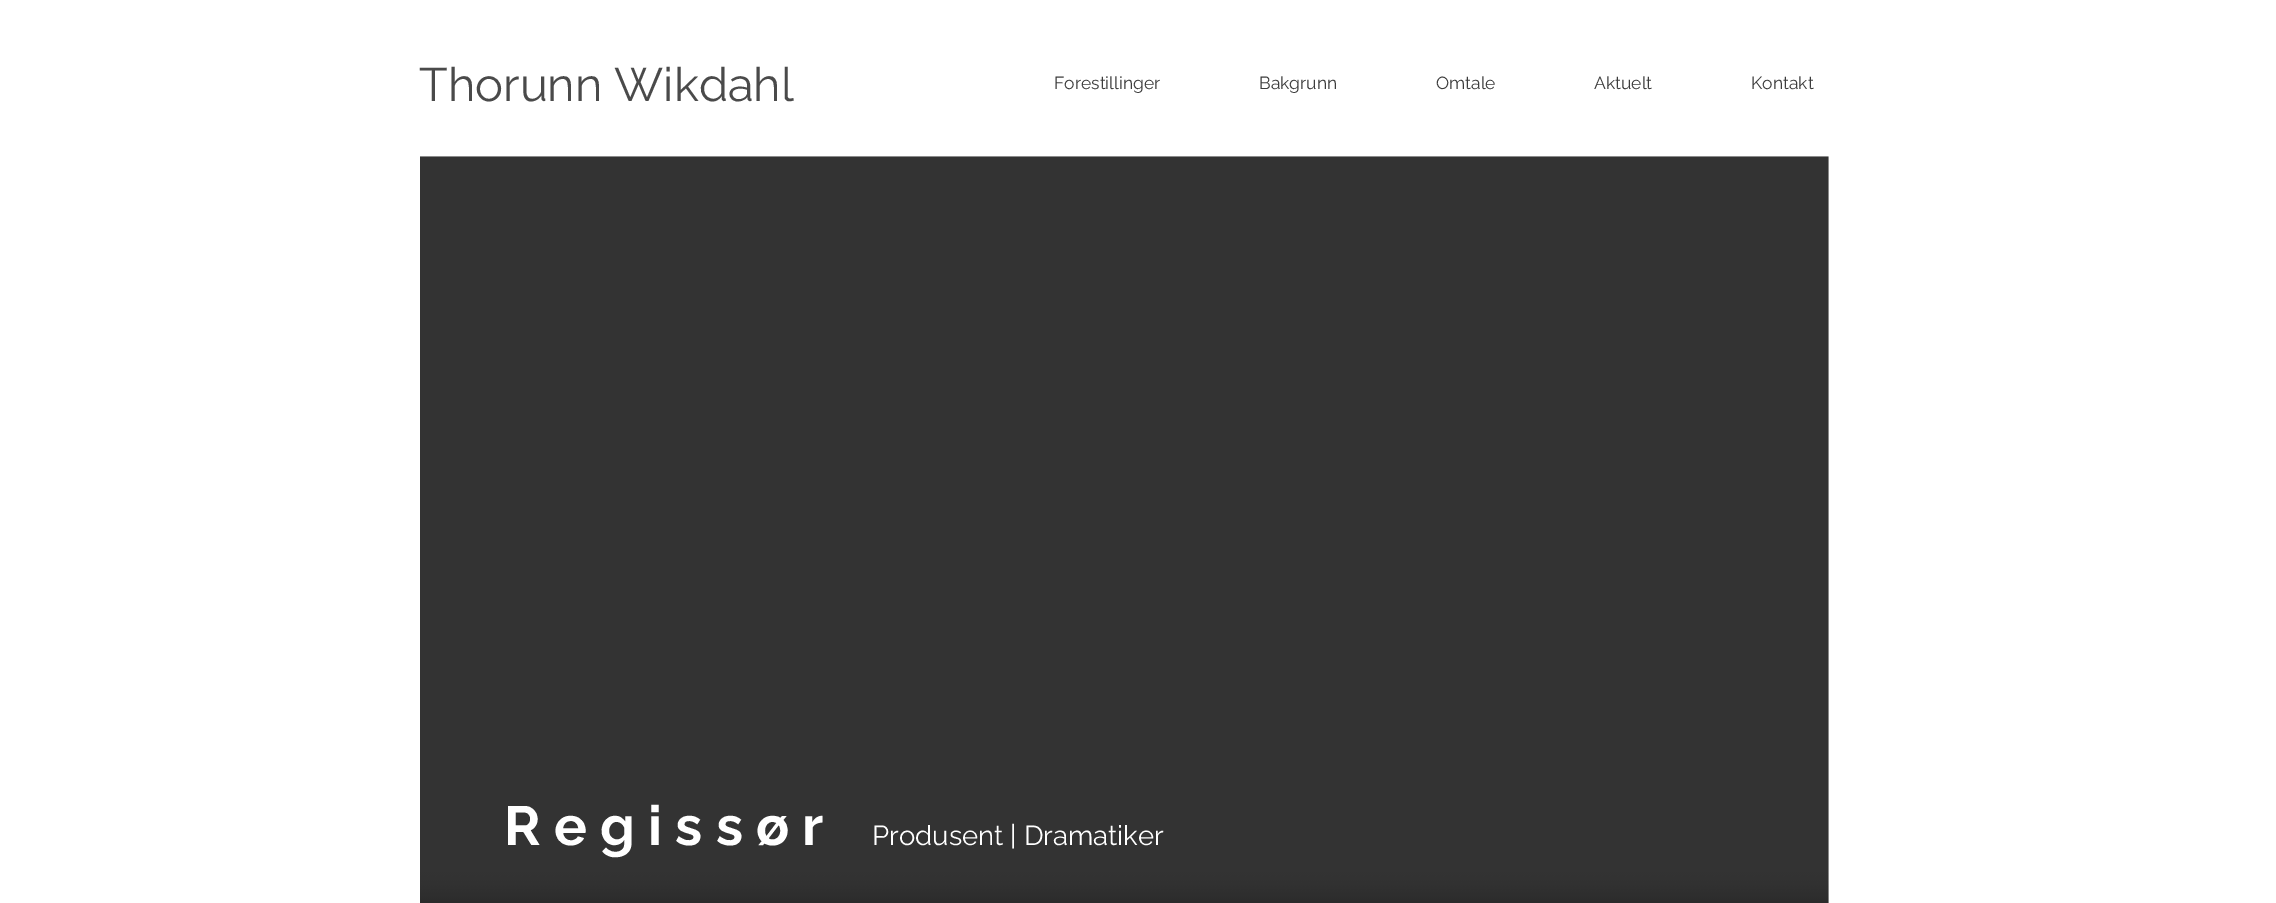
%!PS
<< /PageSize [2276 903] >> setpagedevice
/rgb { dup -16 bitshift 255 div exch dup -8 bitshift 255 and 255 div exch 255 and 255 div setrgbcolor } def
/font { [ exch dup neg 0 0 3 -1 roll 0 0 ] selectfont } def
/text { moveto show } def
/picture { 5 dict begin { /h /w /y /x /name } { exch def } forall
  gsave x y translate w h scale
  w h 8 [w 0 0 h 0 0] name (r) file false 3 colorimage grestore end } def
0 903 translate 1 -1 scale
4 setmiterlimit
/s1 { /Raleway-Regular 47 font 16#4A4A4A rgb } def
/s2 { /Raleway-Regular 17.5 font 16#3C3C3C rgb } def
/s3 { /Raleway-Bold 55 font 16#FFFFFF rgb } def
/s4 { /Raleway-Regular 27.5 font 16#FFFFFF rgb } def
16#FFFFFF rgb
0 0 2276 903 rectfill
s1
(Thorunn Wikdahl) 419 101 text
s2
(Forestillinger) 1054 89 text
(Bakgrunn) 1259 89 text
(Omtale) 1436 89 text
(Aktuelt) 1594 89 text
(Kontakt) 1751 89 text
(pic1.raw) 420 156 1409 747 picture
s3
(R e g i s s ø r) 504 845 text
s4
(Produsent | Dramatiker) 872 845 text
showpage
